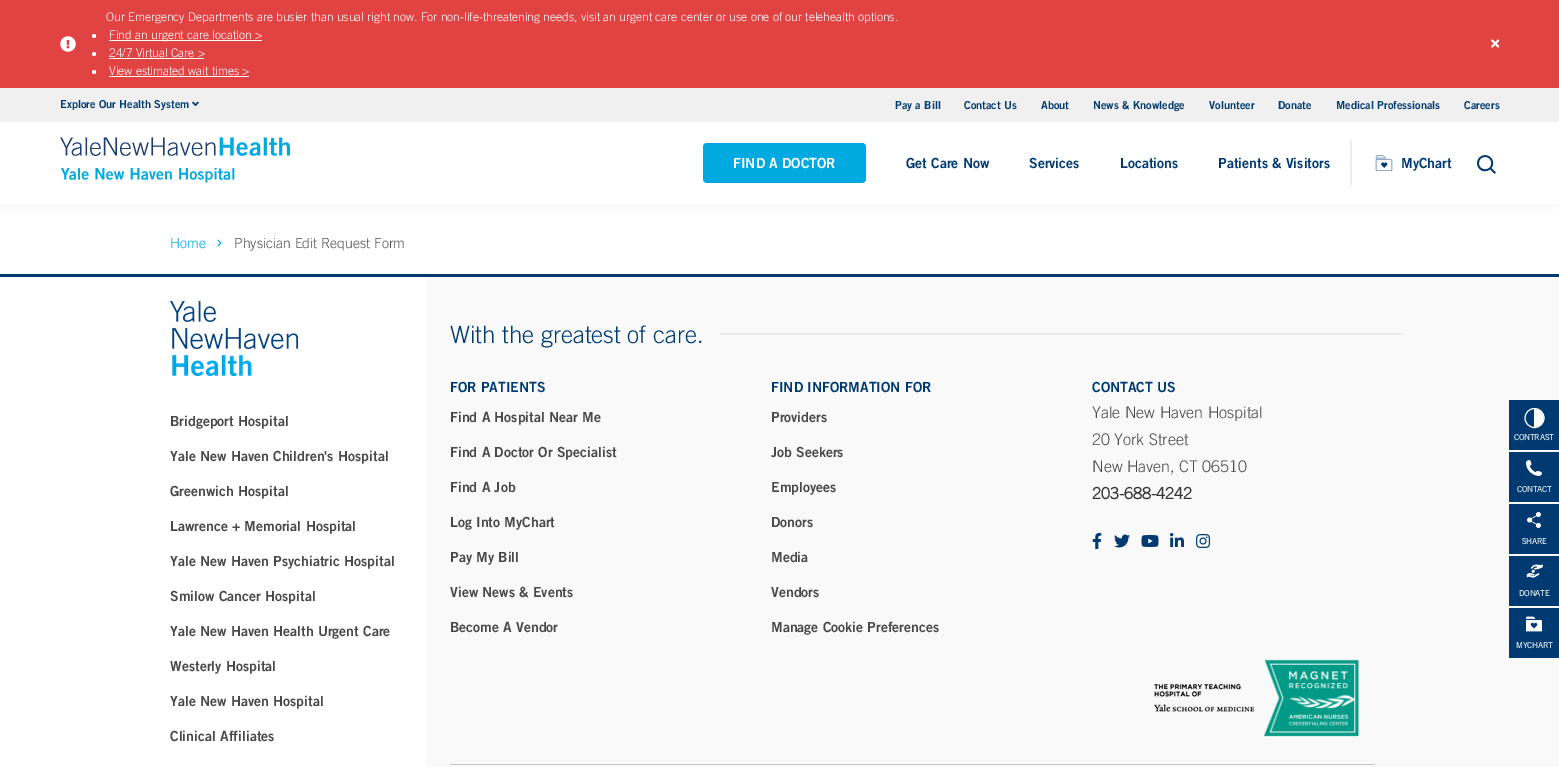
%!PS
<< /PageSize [1559 767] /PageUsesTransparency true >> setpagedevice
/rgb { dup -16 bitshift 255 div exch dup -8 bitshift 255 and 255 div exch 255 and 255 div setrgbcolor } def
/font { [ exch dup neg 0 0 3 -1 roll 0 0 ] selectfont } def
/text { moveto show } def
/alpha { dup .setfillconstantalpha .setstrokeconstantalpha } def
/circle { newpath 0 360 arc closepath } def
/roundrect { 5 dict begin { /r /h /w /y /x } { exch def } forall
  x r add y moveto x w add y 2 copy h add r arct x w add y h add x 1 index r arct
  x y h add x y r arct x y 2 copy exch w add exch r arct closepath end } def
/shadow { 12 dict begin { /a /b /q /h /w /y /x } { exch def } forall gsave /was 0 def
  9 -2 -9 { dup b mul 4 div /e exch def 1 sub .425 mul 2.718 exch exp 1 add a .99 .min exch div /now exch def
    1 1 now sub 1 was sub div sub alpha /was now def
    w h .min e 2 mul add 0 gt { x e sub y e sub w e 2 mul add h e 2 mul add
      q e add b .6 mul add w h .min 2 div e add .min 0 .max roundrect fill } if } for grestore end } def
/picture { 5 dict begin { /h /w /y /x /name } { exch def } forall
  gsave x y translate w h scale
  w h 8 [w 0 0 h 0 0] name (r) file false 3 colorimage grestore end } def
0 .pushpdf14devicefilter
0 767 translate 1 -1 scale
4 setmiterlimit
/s1 { /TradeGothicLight-Light 12 font 16#FFFFFF rgb } def
/s2 { /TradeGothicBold-Bold 11 font 16#003A70 rgb } def
/s3 { /TradeGothicBold-Bold 14 font 16#FFFFFF rgb } def
/s4 { /TradeGothicBold-Bold 14 font 16#003A70 rgb } def
/s5 { /TradeGothicLight-Light 14 font 16#00A9E0 rgb } def
/s6 { /TradeGothicLight-Light 14 font 16#525252 rgb } def
/s7 { /TradeGothicBold-Bold 14 font 16#494949 rgb } def
/s8 { /TradeGothicLight-Light 24 font 16#003A70 rgb } def
/s9 { /TradeGothicLight-Light 16 font 16#494949 rgb } def
/s10 { /TradeGothicLight-Bold 16 font 16#363636 rgb } def
/s11 { /TradeGothicLight-Bold 8 font 16#FFFFFF rgb } def
16#FFFFFF rgb
0 0 1559 767 rectfill
16#E14242 rgb
0 0 1559 88 rectfill
(pic1.raw) 60 36 16 16 picture
s1
(Our Emergency Departments are busier than usual right now. For non-life-threatening needs, visit an urgent care center or use one of our telehealth options.) 106 21 text
94 36 2 circle fill
109 40 153 1 rectfill
(Find an urgent care location >) 109 39 text
94 54 2 circle fill
(24/7 Virtual Care >) 109 57 text
109 58 95 1 rectfill
94 72 2 circle fill
(View estimated wait times >) 109 75 text
109 76 140 1 rectfill
(pic2.raw) 1491 39 9 9 picture
16#CBCBCB rgb
0 123 1559 82 0 9 0.2 shadow
16#F0F0F0 rgb
0 88 1559 34 rectfill
s2
(Explore Our Health System) 60 108 text
(pic3.raw) 192 101 7 5 picture
(Pay a Bill) 895 109 text
(Contact Us) 964 109 text
(About) 1041 109 text
(News & Knowledge) 1093 109 text
(Volunteer) 1209 109 text
(Donate) 1278 109 text
(Medical Professionals) 1336 109 text
(Careers) 1464 109 text
16#FFFFFF rgb
0 122 1559 82 rectfill
(pic4.raw) 60 137 230 46 picture
16#00A9E0 rgb
703 143 163 40 4 roundrect fill
s3
(FIND A DOCTOR) 733 168 text
s4
(Get Care Now) 906 168 text
(Services) 1029 168 text
(Locations) 1120 168 text
(Patients & Visitors) 1218 168 text
16#EDEDED rgb
1350 140 2 45 rectfill
(pic5.raw) 1375 155 18 16 picture
s4
(MyChart) 1401 168 text
(pic6.raw) 1477 155 19 19 picture
s5
(Home) 170 248 text
(pic7.raw) 217 239 5 8 picture
s6
(Physician Edit Request Form) 234 248 text
16#F9F9F9 rgb
426 277 1133 490 rectfill
16#003A70 rgb
0 274 1559 3 rectfill
(pic8.raw) 170 301 128 75 picture
s7
(Bridgeport Hospital) 170 426 text
(Yale New Haven Children's Hospital) 170 461 text
(Greenwich Hospital) 170 496 text
(Lawrence + Memorial Hospital) 170 531 text
(Yale New Haven Psychiatric Hospital) 170 566 text
(Smilow Cancer Hospital) 170 601 text
(Yale New Haven Health Urgent Care) 170 636 text
(Westerly Hospital) 170 671 text
(Yale New Haven Hospital) 170 706 text
(Clinical Affiliates) 170 741 text
s8
(With the greatest of care.) 450 343 text
16#EAEAEA rgb
720 333 682 2 rectfill
s4
(FOR PATIENTS) 450 392 text
s7
(Find A Hospital Near Me) 450 422 text
(Find A Doctor Or Specialist) 450 457 text
(Find A Job) 450 492 text
(Log Into MyChart) 450 527 text
(Pay My Bill) 450 562 text
(View News & Events) 450 597 text
(Become A Vendor) 450 632 text
s4
(FIND INFORMATION FOR) 771 392 text
s7
(Providers) 771 422 text
(Job Seekers) 771 457 text
(Employees) 771 492 text
(Donors) 771 527 text
(Media) 771 562 text
(Vendors) 771 597 text
(Manage Cookie Preferences) 771 632 text
s4
(CONTACT US) 1092 392 text
s9
(Yale New Haven Hospital) 1092 418 text
(20 York Street) 1092 445 text
(New Haven, CT 06510) 1092 472 text
s10
(203-688-4242) 1092 499 text
(pic9.raw) 1092 533 10 16 picture
(pic10.raw) 1114 534 16 14 picture
(pic11.raw) 1141 535 18 12 picture
(pic12.raw) 1170 533 14 14 picture
(pic13.raw) 1196 534 15 14 picture
(pic14.raw) 1154 684 100 28 picture
(pic15.raw) 1263 659 97 78 picture
16#C7C7C7 rgb
450 764 925 1 rectfill
16#003A70 rgb
1509 400 50 50 rectfill
16#FFFFFF rgb
1534.5 418 9.5 circle stroke
1534 427 moveto 1547 427 1547 409 1534 409 curveto closepath eofill
s11
(CONTRAST) 1514 440 text
16#003A70 rgb
1509 452 50 50 rectfill
(pic16.raw) 1526 460 16 16 picture
s11
(CONTACT) 1517 492 text
16#003A70 rgb
1509 504 50 50 rectfill
(pic17.raw) 1527 512 14 16 picture
s11
(SHARE) 1522 544 text
16#003A70 rgb
1509 556 50 50 rectfill
(pic18.raw) 1526 564 17 14 picture
s11
(DONATE) 1519 596 text
16#003A70 rgb
1509 608 50 50 rectfill
(pic19.raw) 1526 616 16 16 picture
s11
(MYCHART) 1516 648 text
.poppdf14devicefilter showpage
